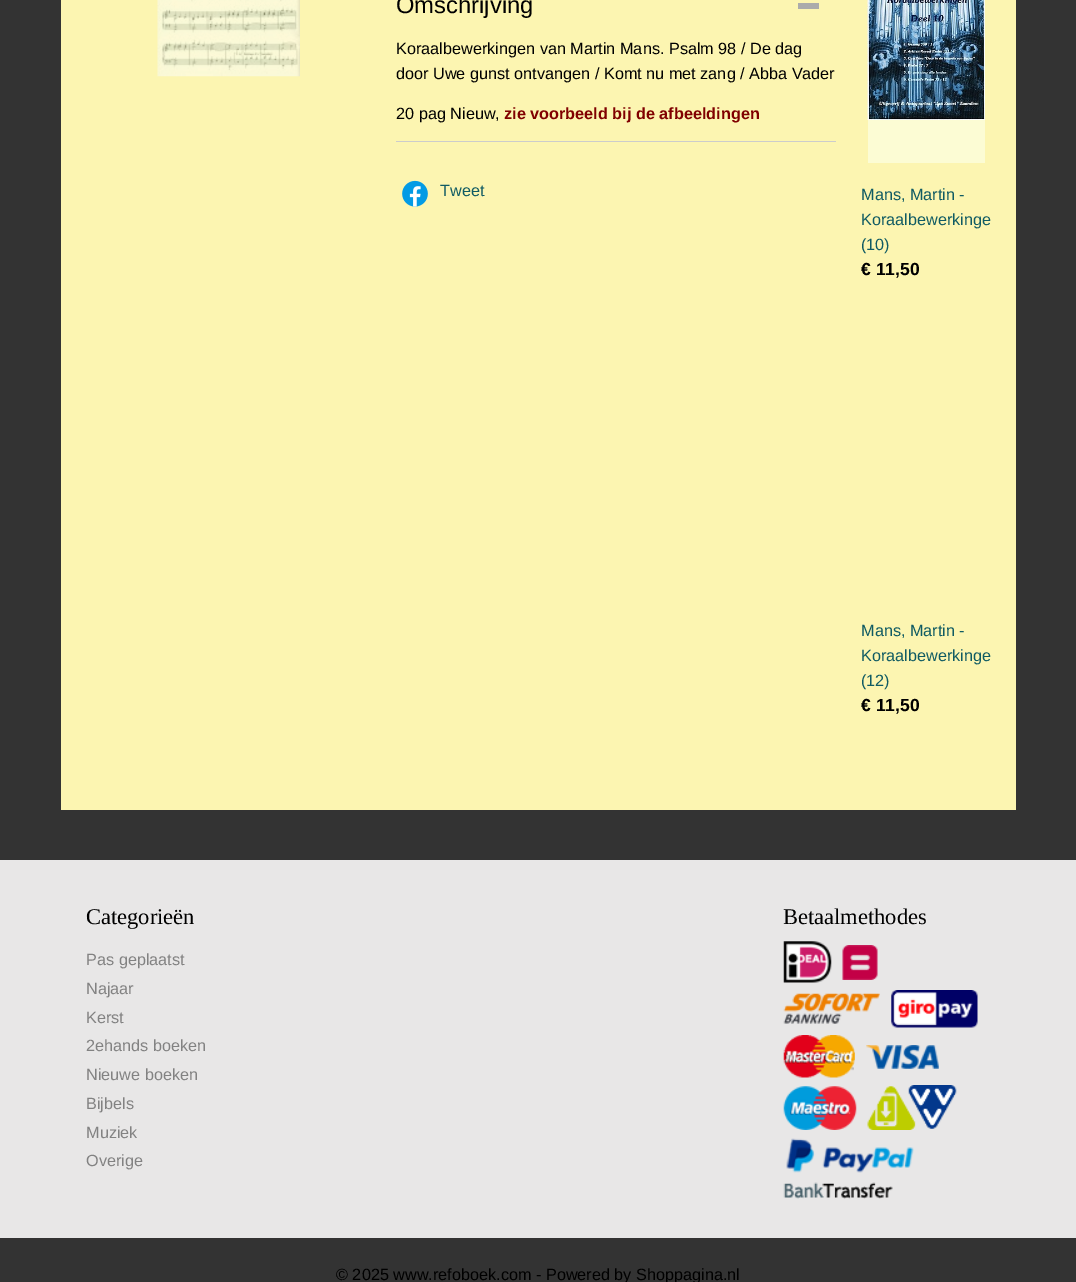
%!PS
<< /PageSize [1076 1282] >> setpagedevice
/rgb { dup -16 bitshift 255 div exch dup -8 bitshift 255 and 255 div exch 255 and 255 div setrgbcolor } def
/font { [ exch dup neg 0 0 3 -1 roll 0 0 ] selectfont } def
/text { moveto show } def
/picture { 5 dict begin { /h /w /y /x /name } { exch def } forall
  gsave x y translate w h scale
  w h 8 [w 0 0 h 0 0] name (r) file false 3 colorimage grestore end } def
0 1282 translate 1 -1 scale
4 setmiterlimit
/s1 { /LiberationSans-Regular 23.75 font 16#000000 rgb } def
/s2 { /LiberationSans-Regular 16.25 font 16#000000 rgb } def
/s3 { /LiberationSans-Bold 16.25 font 16#800000 rgb } def
/s4 { /LiberationSans-Regular 16.25 font 16#105B63 rgb } def
/s5 { /LiberationSans-Bold 17.5 font 16#000000 rgb } def
/s6 { /LiberationSerif-Regular 22.5 font 16#000000 rgb } def
/s7 { /LiberationSans-Regular 16.25 font 16#828282 rgb } def
16#333333 rgb
0 0 1076 1282 rectfill
16#FCF5B1 rgb
61 0 955 810 rectfill
(pic1.raw) 157 0 143 77 picture
16#CCCCCC rgb
396 141 440 1 rectfill
16#ABABAB rgb
798 3 21 6 rectfill
s1
(Omschrijving) 396 13 text
s2
(Koraalbewerkingen van Martin Mans. Psalm 98 / De dag) 396 54 text
(door Uwe gunst ontvangen / Komt nu met zang / Abba Vader) 396 79 text
(20 pag Nieuw,) 396 119 text
s3
(zie voorbeeld bij de afbeeldingen) 504 119 text
(pic2.raw) 402 180 26 27 picture
s4
(Tweet) 440 196 text
16#FCFCD4 rgb
868 120 117 43 rectfill
(pic3.raw) 867 0 118 120 picture
s4
(Mans, Martin -) 861 200 text
(Koraalbewerkinge) 861 225 text
(\(10\)) 861 250 text
s5
(€ 11,50) 861 275 text
s4
(Mans, Martin -) 861 636 text
(Koraalbewerkinge) 861 661 text
(\(12\)) 861 686 text
s5
(€ 11,50) 861 711 text
16#E8E7E7 rgb
0 860 1076 378 rectfill
s6
(Categorieën) 86 924 text
s7
(Pas geplaatst) 86 965 text
(Najaar) 86 994 text
(Kerst) 86 1023 text
(2ehands boeken) 86 1051 text
(Nieuwe boeken) 86 1080 text
(Bijbels) 86 1109 text
(Muziek) 86 1138 text
(Overige) 86 1166 text
s6
(Betaalmethodes) 783 924 text
(pic4.raw) 783 941 49 42 picture
(pic5.raw) 842 945 36 35 picture
(pic6.raw) 783 993 97 31 picture
(pic7.raw) 891 990 87 38 picture
(pic8.raw) 783 1035 72 43 picture
(pic9.raw) 866 1045 73 24 picture
(pic10.raw) 783 1086 74 44 picture
(pic11.raw) 867 1085 90 45 picture
(pic12.raw) 786 1138 128 35 picture
(pic13.raw) 783 1182 110 17 picture
s2
(© 2025 www.refoboek.com - Powered by Shoppagina.nl) 336 1280 text
showpage
